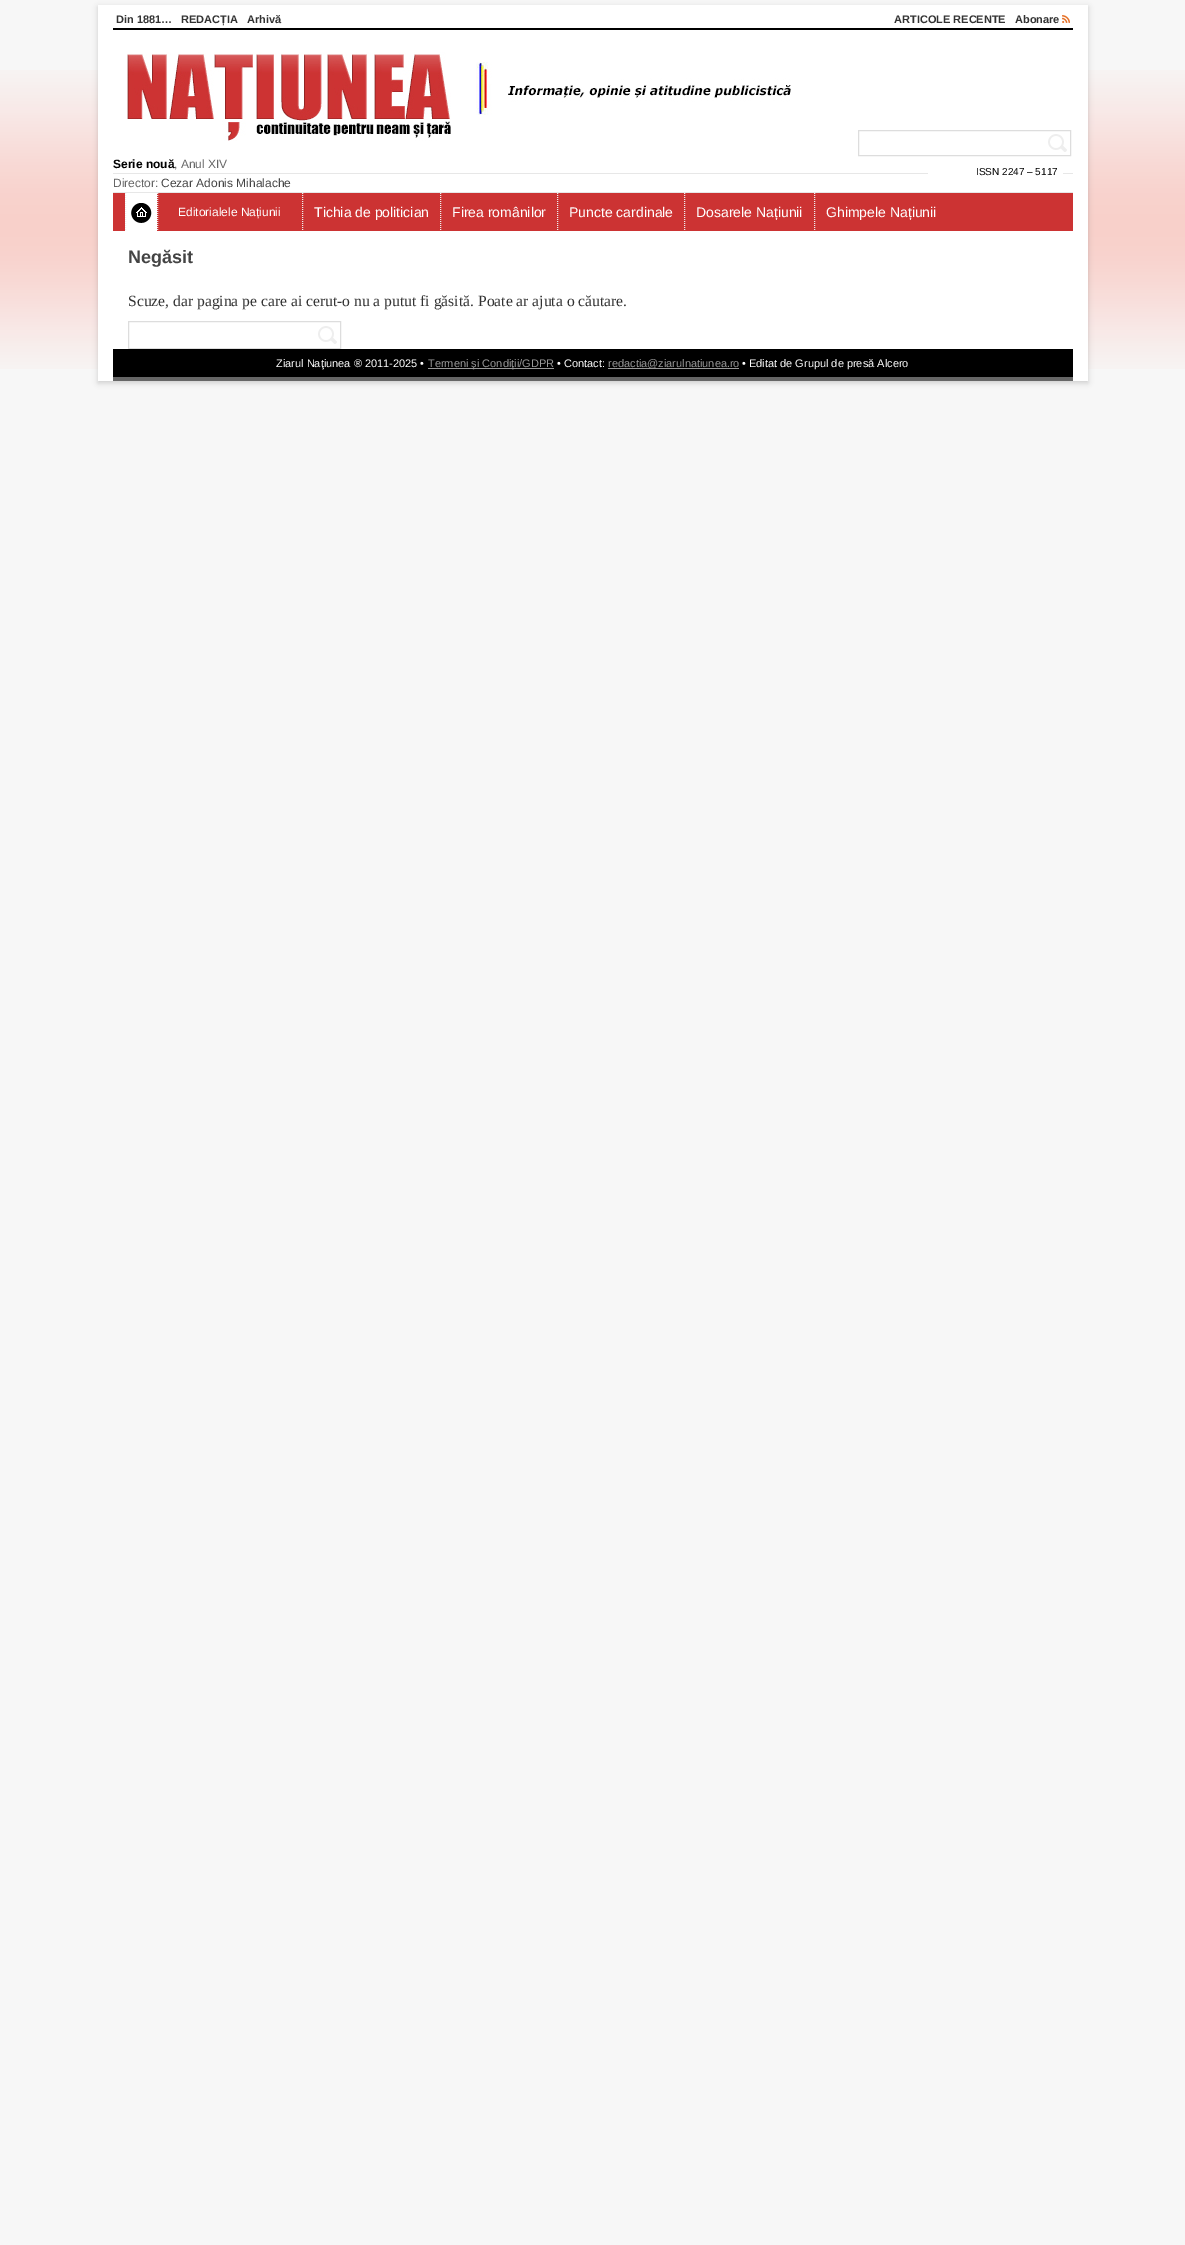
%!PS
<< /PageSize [1185 2245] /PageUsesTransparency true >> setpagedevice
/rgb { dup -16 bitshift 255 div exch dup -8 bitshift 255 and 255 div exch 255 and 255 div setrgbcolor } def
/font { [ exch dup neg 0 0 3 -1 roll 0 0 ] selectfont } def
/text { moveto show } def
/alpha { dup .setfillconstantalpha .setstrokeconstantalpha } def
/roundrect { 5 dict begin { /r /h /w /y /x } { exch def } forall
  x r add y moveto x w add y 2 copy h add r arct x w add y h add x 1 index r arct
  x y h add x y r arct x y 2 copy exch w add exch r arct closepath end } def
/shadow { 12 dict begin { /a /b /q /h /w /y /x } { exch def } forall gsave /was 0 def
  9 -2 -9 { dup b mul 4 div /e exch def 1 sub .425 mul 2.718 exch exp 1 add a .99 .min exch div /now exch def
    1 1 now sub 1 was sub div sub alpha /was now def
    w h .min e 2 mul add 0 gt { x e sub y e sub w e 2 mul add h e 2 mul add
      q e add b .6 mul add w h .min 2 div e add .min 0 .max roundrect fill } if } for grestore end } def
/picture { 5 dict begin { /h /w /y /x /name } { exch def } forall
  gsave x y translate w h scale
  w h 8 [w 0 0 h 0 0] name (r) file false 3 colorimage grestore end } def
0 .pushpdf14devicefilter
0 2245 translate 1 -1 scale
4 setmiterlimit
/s1 { /LiberationSans-Bold 11 font 16#333333 rgb } def
/s2 { /LiberationSans-Bold 12 font 16#000000 rgb } def
/s3 { /LiberationSans-Regular 12 font 16#666666 rgb } def
/s4 { /LiberationSans-Regular 10 font 16#000000 rgb } def
/s5 { /LiberationSans-Regular 12 font 16#444444 rgb } def
/s6 { /LiberationSans-Regular 12 font 16#FFFFFF rgb } def
/s7 { /LiberationSans-Regular 14 font 16#FFFFFF rgb } def
/s8 { /LiberationSans-Bold 18 font 16#444444 rgb } def
/s9 { /LiberationSerif-Regular 15.6 font 16#333333 rgb } def
/s10 { /LiberationSans-Regular 11 font 16#FFFFFF rgb } def
/s11 { /LiberationSans-Regular 11 font 16#999999 rgb } def
16#F7F7F7 rgb
0 0 1185 2245 rectfill
(pic1.raw) 0 70 1185 299 picture
16#646464 rgb
98 7 990 376 0 3 0.3 shadow
16#FFFFFF rgb
98 5 990 376 rectfill
s1
(Din 1881…) 116 23 text
(REDACȚIA) 181 23 text
(Arhivă) 247 23 text
(ARTICOLE RECENTE) 894 23 text
(Abonare) 1015 23 text
(pic2.raw) 1062 15 8 8 picture
16#000000 rgb
113 28 960 2 rectfill
(pic3.raw) 127 52 324 89 picture
(pic4.raw) 476 62 315 53 picture
s2
(Serie nouă) 113 168 text
s3
(, Anul XIV) 174 168 text
(pic5.raw) 1048 134 19 18 picture
16#DDDDDD rgb
858.5 130.5 212 25 rectstroke
16#E7E7E7 rgb
113 173 960 1 rectfill
16#FFFFFF rgb
928 173 135 1 rectfill
s4
(ISSN 2247 – 5117) 976 175 text
s3
(Director:) 113 187 text
s5
(Cezar Adonis Mihalache) 161 187 text
16#E7E7E7 rgb
113 192 960 1 rectfill
16#CC3333 rgb
113 193 960 38 rectfill
16#FFFFFF rgb
125 193 32 38 rectfill
16#EEEEEE rgb
[1 1] 0 setdash
125.5 193 moveto 125.5 231 lineto stroke
(pic6.raw) 131 203 21 20 picture
157.5 193 moveto 157.5 231 lineto stroke
s6
(Editorialele Națiunii) 178 216 text
16#EEEEEE rgb
302.5 193 moveto 302.5 231 lineto stroke
s7
(Tichia de politician) 314 217 text
16#EEEEEE rgb
440.5 193 moveto 440.5 231 lineto stroke
s7
(Firea românilor) 452 217 text
16#EEEEEE rgb
557.5 193 moveto 557.5 231 lineto stroke
s7
(Puncte cardinale) 569 217 text
16#EEEEEE rgb
684.5 193 moveto 684.5 231 lineto stroke
s7
(Dosarele Națiunii) 696 217 text
16#EEEEEE rgb
814.5 193 moveto 814.5 231 lineto stroke
s7
(Ghimpele Națiunii) 826 217 text
s8
(Negăsit) 128 263 text
s9
(Scuze, dar pagina pe care ai cerut-o nu a putut fi găsită. Poate ar ajuta o căutare.) 128 306 text
(pic5.raw) 318 326 19 18 picture
16#DDDDDD rgb
[] 0 setdash
128.5 321.5 212 27 rectstroke
16#000000 rgb
113 349 960 28 rectfill
16#666666 rgb
113 377 960 4 rectfill
s10
(Ziarul Naţiunea ® 2011-2025 •) 276 367 text
16#999999 rgb
428 368 126 1 rectfill
(Termeni şi Condiţii/GDPR) 428 367 text
s10
(• Contact:) 557 367 text
16#999999 rgb
608 368 131 1 rectfill
(redactia@ziarulnatiunea.ro) 608 367 text
s10
(• Editat de Grupul de presă Alcero) 742 367 text
.poppdf14devicefilter showpage
